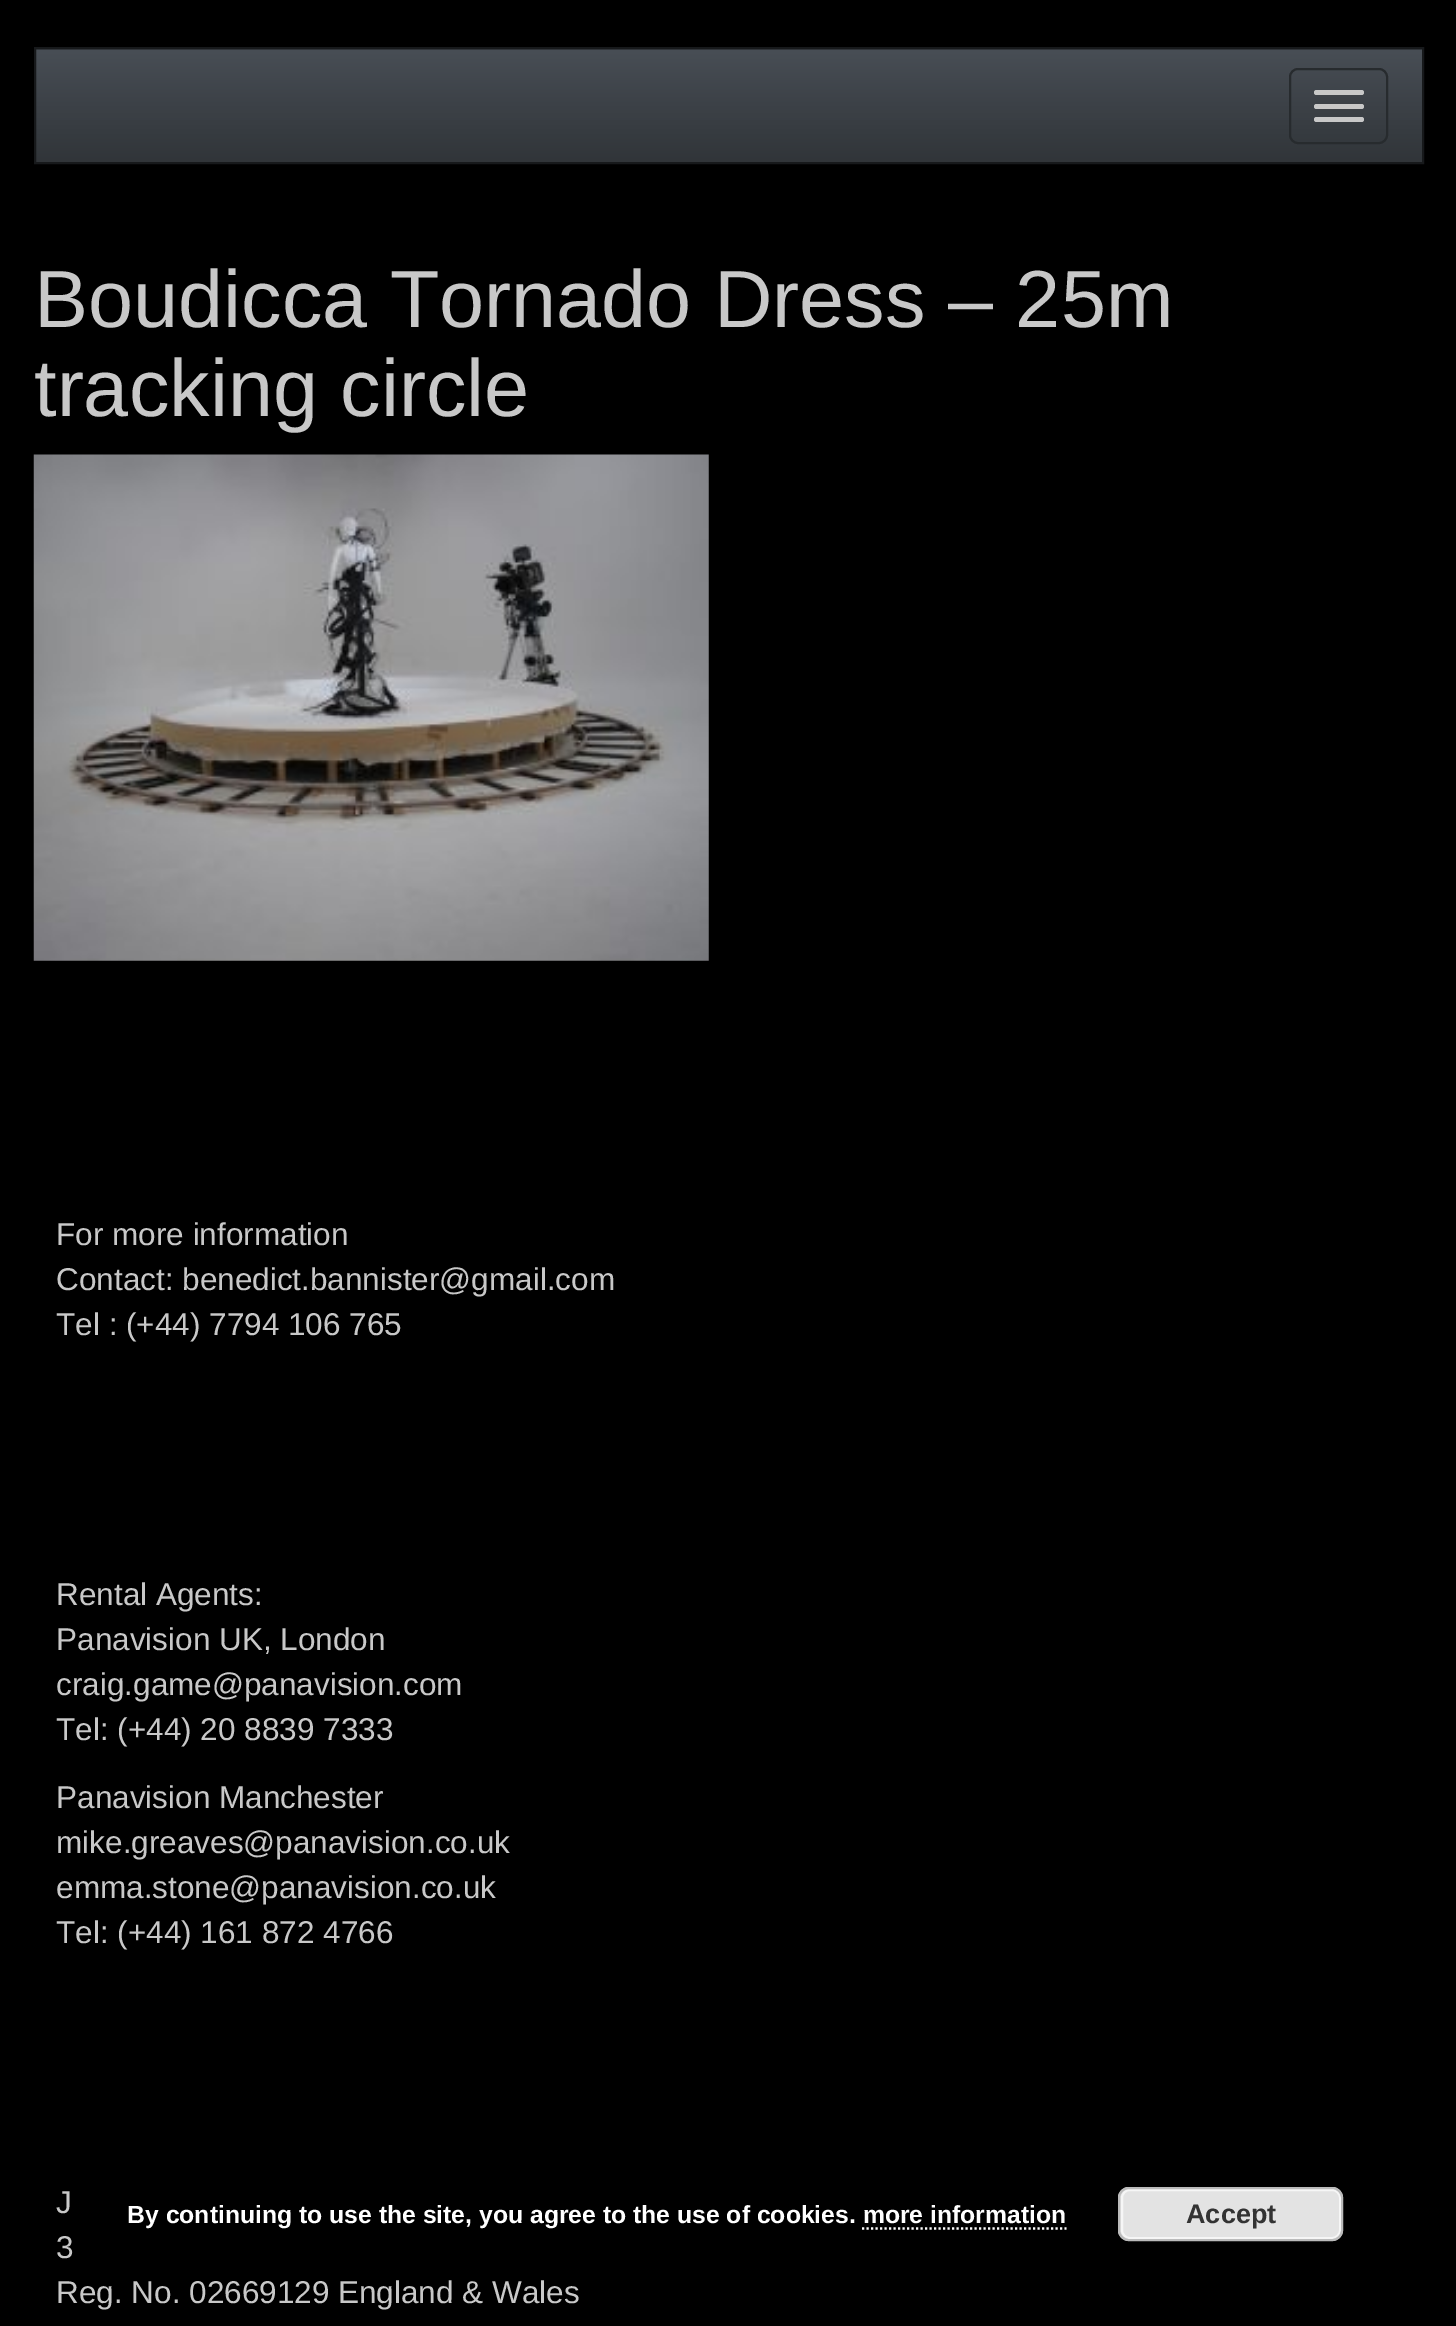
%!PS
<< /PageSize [1456 2326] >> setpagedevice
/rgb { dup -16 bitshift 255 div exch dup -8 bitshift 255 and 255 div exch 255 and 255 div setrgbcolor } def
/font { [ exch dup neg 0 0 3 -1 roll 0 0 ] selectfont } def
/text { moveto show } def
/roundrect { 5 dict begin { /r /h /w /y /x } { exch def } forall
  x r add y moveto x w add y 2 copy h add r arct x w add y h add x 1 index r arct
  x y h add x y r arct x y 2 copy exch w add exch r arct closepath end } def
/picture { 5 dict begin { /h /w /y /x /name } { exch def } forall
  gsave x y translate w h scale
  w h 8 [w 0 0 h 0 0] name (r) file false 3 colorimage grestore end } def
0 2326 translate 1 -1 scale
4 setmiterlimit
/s1 { /LiberationSans-Regular 81 font 16#C8C8C8 rgb } def
/s2 { /LiberationSans-Regular 31.5 font 16#C8C8C8 rgb } def
/s3 { /LiberationSans-Bold 24.75 font 16#FFFFFF rgb } def
/s4 { /LiberationSans-Bold 27 font 16#333333 rgb } def
16#000000 rgb
0 0 1456 2326 rectfill
16#3A3F44 rgb
36 49 1386 1 rectfill
gsave 36 50 moveto 1422 50 lineto 1422 162 lineto 36 162 lineto closepath clip newpath
<< /ShadingType 2 /ColorSpace /DeviceRGB /Coords [729 49 729 162] /Extend [true true] /Function << /FunctionType 3 /Domain [0 1] /Functions [<< /FunctionType 2 /Domain [0 1] /C0 [0.282 0.306 0.333] /C1 [0.227 0.247 0.267] /N 1 >> << /FunctionType 2 /Domain [0 1] /C0 [0.227 0.247 0.267] /C1 [0.192 0.208 0.224] /N 1 >>] /Bounds [0.6] /Encode [0 1 0 1] >> >> shfill grestore
16#17191B rgb
2 setlinewidth
35 48 1388 115 rectstroke
16#272B2E rgb
1290 69 97 74 8 roundrect stroke
16#C8C8C8 rgb
1314 90 50 5 2.5 roundrect fill
1314 104 50 5 2.5 roundrect fill
1314 117 50 5 2.5 roundrect fill
s1
(Boudicca Tornado Dress – 25m) 34 327 text
(tracking circle) 34 416 text
(pic1.raw) 33 454 676 507 picture
s2
(For more information) 56 1245 text
(Contact: benedict.bannister@gmail.com) 56 1290 text
(Tel : \(+44\) 7794 106 765) 56 1335 text
(Rental Agents:) 56 1605 text
(Panavision UK, London) 56 1650 text
(craig.game@panavision.com) 56 1695 text
(Tel: \(+44\) 20 8839 7333) 56 1740 text
(Panavision Manchester) 56 1808 text
(mike.greaves@panavision.co.uk) 56 1853 text
(emma.stone@panavision.co.uk) 56 1898 text
(Tel: \(+44\) 161 872 4766) 56 1943 text
(J) 56 2213 text
(3) 56 2258 text
(Reg. No. 02669129 England & Wales) 56 2303 text
s3
(By continuing to use the site, you agree to the use of cookies. more information) 127 2223 text
16#E3E3E3 rgb
1118 2187 225 54 11 roundrect fill
16#F6F6F6 rgb
1122 2190 218 48 8 roundrect stroke
16#BBBBBB rgb
1119 2188 223 52 10 roundrect stroke
s4
(Accept) 1186 2223 text
16#FFFFFF rgb
2.2 setlinewidth
[2.25 2.25] 0 setdash
862 2228.5 moveto 1066.5 2228.5 lineto stroke
showpage
